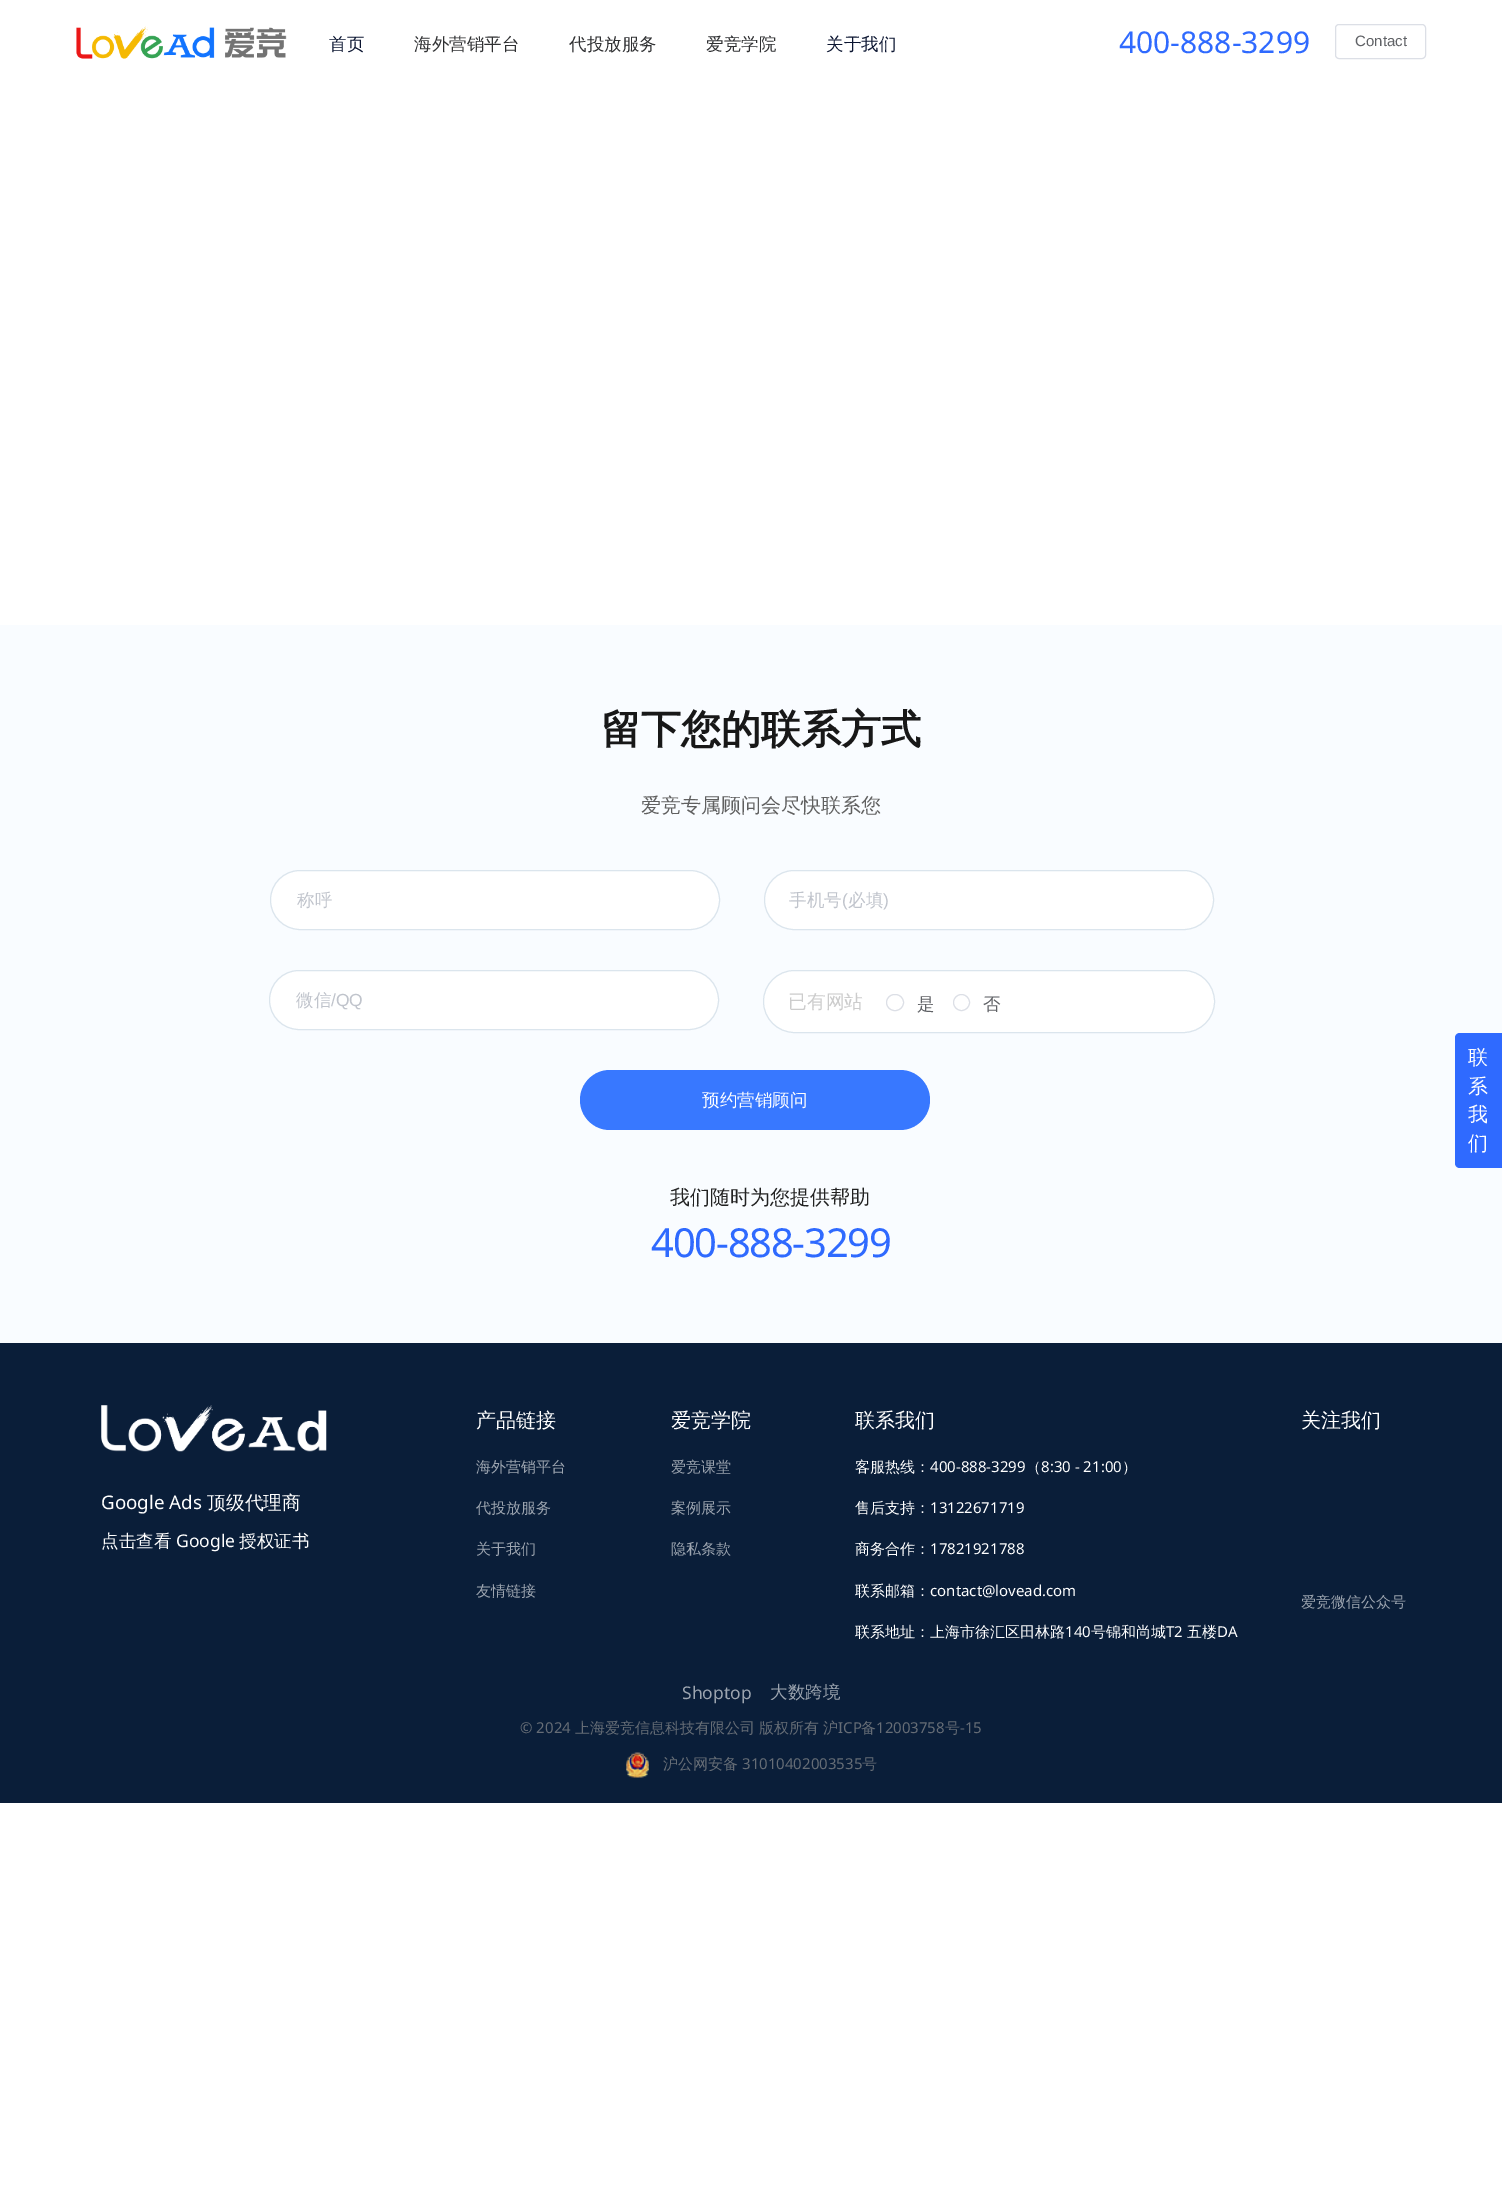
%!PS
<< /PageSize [1502 2200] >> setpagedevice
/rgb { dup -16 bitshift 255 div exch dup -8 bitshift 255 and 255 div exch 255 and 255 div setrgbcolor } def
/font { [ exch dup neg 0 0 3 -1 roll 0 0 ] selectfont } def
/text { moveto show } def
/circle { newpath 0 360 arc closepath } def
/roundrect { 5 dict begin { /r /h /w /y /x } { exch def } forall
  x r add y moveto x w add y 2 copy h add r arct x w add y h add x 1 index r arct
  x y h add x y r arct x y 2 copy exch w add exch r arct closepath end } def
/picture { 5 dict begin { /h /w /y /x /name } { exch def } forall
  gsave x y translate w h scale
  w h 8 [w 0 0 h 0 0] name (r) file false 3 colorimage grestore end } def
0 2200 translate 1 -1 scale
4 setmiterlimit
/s1 { /WenQuanYiZenHei-Medium 17.5 font 16#0B1531 rgb } def
/s2 { /WenQuanYiZenHei-Medium 17.5 font 16#303133 rgb } def
/s3 { /NotoSans-Regular 30 font 16#2F6AFF rgb } def
/s4 { /LiberationSans-Regular 15 font 16#606266 rgb } def
/s5 { /WenQuanYiZenHei-Bold 40 font 16#181818 rgb } def
/s6 { /WenQuanYiZenHei-Medium 20 font 16#606060 rgb } def
/s7 { /WenQuanYiZenHei-Medium 17.5 font 16#C0C4CC rgb } def
/s8 { /LiberationSans-Regular 17.5 font 16#C0C4CC rgb } def
/s9 { /WenQuanYiZenHei-Medium 18.75 font 16#CCCCCC rgb } def
/s10 { /WenQuanYiZenHei-Medium 17.5 font 16#606266 rgb } def
/s11 { /WenQuanYiZenHei-Medium 17.5 font 16#FFFFFF rgb } def
/s12 { /WenQuanYiZenHei-Medium 20 font 16#222222 rgb } def
/s13 { /NotoSans-Regular 18.75 font 16#FFFFFF rgb } def
/s14 { /WenQuanYiZenHei-Medium 18.75 font 16#FFFFFF rgb } def
/s15 { /NotoSans-Regular 17.5 font 16#FFFFFF rgb } def
/s16 { /WenQuanYiZenHei-Medium 20 font 16#FFFFFF rgb } def
/s17 { /WenQuanYiZenHei-Medium 15 font 16#9DA5B0 rgb } def
/s18 { /WenQuanYiZenHei-Medium 15 font 16#FFFFFF rgb } def
/s19 { /NotoSans-Regular 15 font 16#FFFFFF rgb } def
/s20 { /NotoSans-Regular 17.5 font 16#9DA5B0 rgb } def
/s21 { /WenQuanYiZenHei-Medium 17.5 font 16#9DA5B0 rgb } def
/s22 { /NotoSans-Regular 15 font 16#666D76 rgb } def
/s23 { /WenQuanYiZenHei-Medium 15 font 16#666D76 rgb } def
16#FFFFFF rgb
0 0 1502 2200 rectfill
(pic1.raw) 76 26 211 33 picture
s1
(首页) 329 50 text
s2
(海外营销平台) 414 50 text
(代投放服务) 569 50 text
(爱竞学院) 706 50 text
s1
(关于我们) 826 50 text
s3
(400-888-3299) 1119 53 text
16#DCDFE6 rgb
1335.5 24.5 90 34 3.5 roundrect stroke
s4
(Contact) 1355 46 text
16#F9FCFF rgb
0 625 1502 718 rectfill
s5
(留下您的联系方式) 601 743 text
s6
(爱竞专属顾问会尽快联系您) 641 812 text
16#FFFFFF rgb
270.5 870.5 449 59 29.5 roundrect gsave fill grestore
16#DBE5ED rgb
stroke
s7
(称呼) 297 906 text
16#FFFFFF rgb
764.5 870.5 449 59 29.5 roundrect gsave fill grestore
16#DBE5ED rgb
stroke
s7
(手机号) 789 906 text
s8
(\() 842 906 text
s7
(必填) 848 906 text
s8
(\)) 883 906 text
16#FFFFFF rgb
269.5 970.5 449 59 29.5 roundrect gsave fill grestore
16#DBE5ED rgb
stroke
s7
(微信) 296 1006 text
s8
(/QQ) 331 1006 text
16#FFFFFF rgb
763.5 970.5 451 62 31 roundrect gsave fill grestore
16#DBE5ED rgb
stroke
s9
(已有网站) 788 1008 text
16#DCDFE6 rgb
886.5 994.5 17 16 8 roundrect stroke
s10
(是) 917 1010 text
16#DCDFE6 rgb
961.5 1002.5 8 circle stroke
s10
(否) 983 1010 text
16#3878FF rgb
580 1070 350 60 30 roundrect fill
s11
(预约营销顾问) 702 1106 text
s12
(我们随时为您提供帮助) 670 1204 text
/NotoSans-Regular 40 font
16#2F6AFF rgb
651 1257 moveto -1.25 0 (400-888-3299) ashow
16#0A1E39 rgb
0 1343 1502 460 rectfill
(pic2.raw) 101 1405 226 47 picture
s13
(Google Ads) 101 1509 text
s14
(顶级代理商) 207 1509 text
s11
(点击查看) 101 1547 text
s15
(Google) 176 1547 text
s11
(授权证书) 239 1547 text
s16
(产品链接) 476 1427 text
s17
(海外营销平台) 476 1472 text
(代投放服务) 476 1513 text
(关于我们) 476 1554 text
(友情链接) 476 1596 text
s16
(爱竞学院) 671 1427 text
s17
(爱竞课堂) 671 1472 text
(案例展示) 671 1513 text
(隐私条款) 671 1554 text
s16
(联系我们) 855 1427 text
s18
(客服热线：) 855 1472 text
s19
(400-888-3299) 930 1472 text
s18
(（) 1026 1472 text
s19
(8:30 - 21:00) 1041 1472 text
s18
(）) 1122 1472 text
(售后支持：) 855 1513 text
s19
(13122671719) 930 1513 text
s18
(商务合作：) 855 1554 text
s19
(17821921788) 930 1554 text
s18
(联系邮箱：) 855 1596 text
s19
(contact@lovead.com) 930 1596 text
s18
(联系地址：上海市徐汇区田林路) 855 1637 text
s19
(140) 1065 1637 text
s18
(号锦和尚城) 1091 1637 text
s19
(T2) 1166 1637 text
s18
(五楼) 1187 1637 text
s19
(DA) 1217 1637 text
s16
(关注我们) 1301 1427 text
s17
(爱竞微信公众号) 1301 1607 text
s20
(Shoptop) 682 1699 text
s21
(大数跨境) 770 1698 text
s22
(© 2024) 520 1733 text
s23
(上海爱竞信息科技有限公司) 575 1733 text
(版权所有) 759 1733 text
(沪) 823 1733 text
s22
(ICP) 838 1733 text
s23
(备) 861 1733 text
s22
(12003758) 876 1733 text
s23
(号) 945 1733 text
s22
(-15) 960 1733 text
(pic3.raw) 626 1752 23 26 picture
s23
(沪公网安备) 663 1769 text
s22
(31010402003535) 742 1769 text
s23
(号) 862 1769 text
16#2F6AFF rgb
1460 1033 moveto 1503 1033 lineto 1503 1168 lineto 1460 1168 lineto 1457 1168 1455 1166 1455 1163 curveto 1455 1038 lineto 1455 1035 1457 1033 1460 1033 curveto closepath fill
s16
(联) 1468 1064 text
(系) 1468 1093 text
(我) 1468 1121 text
(们) 1468 1150 text
showpage
